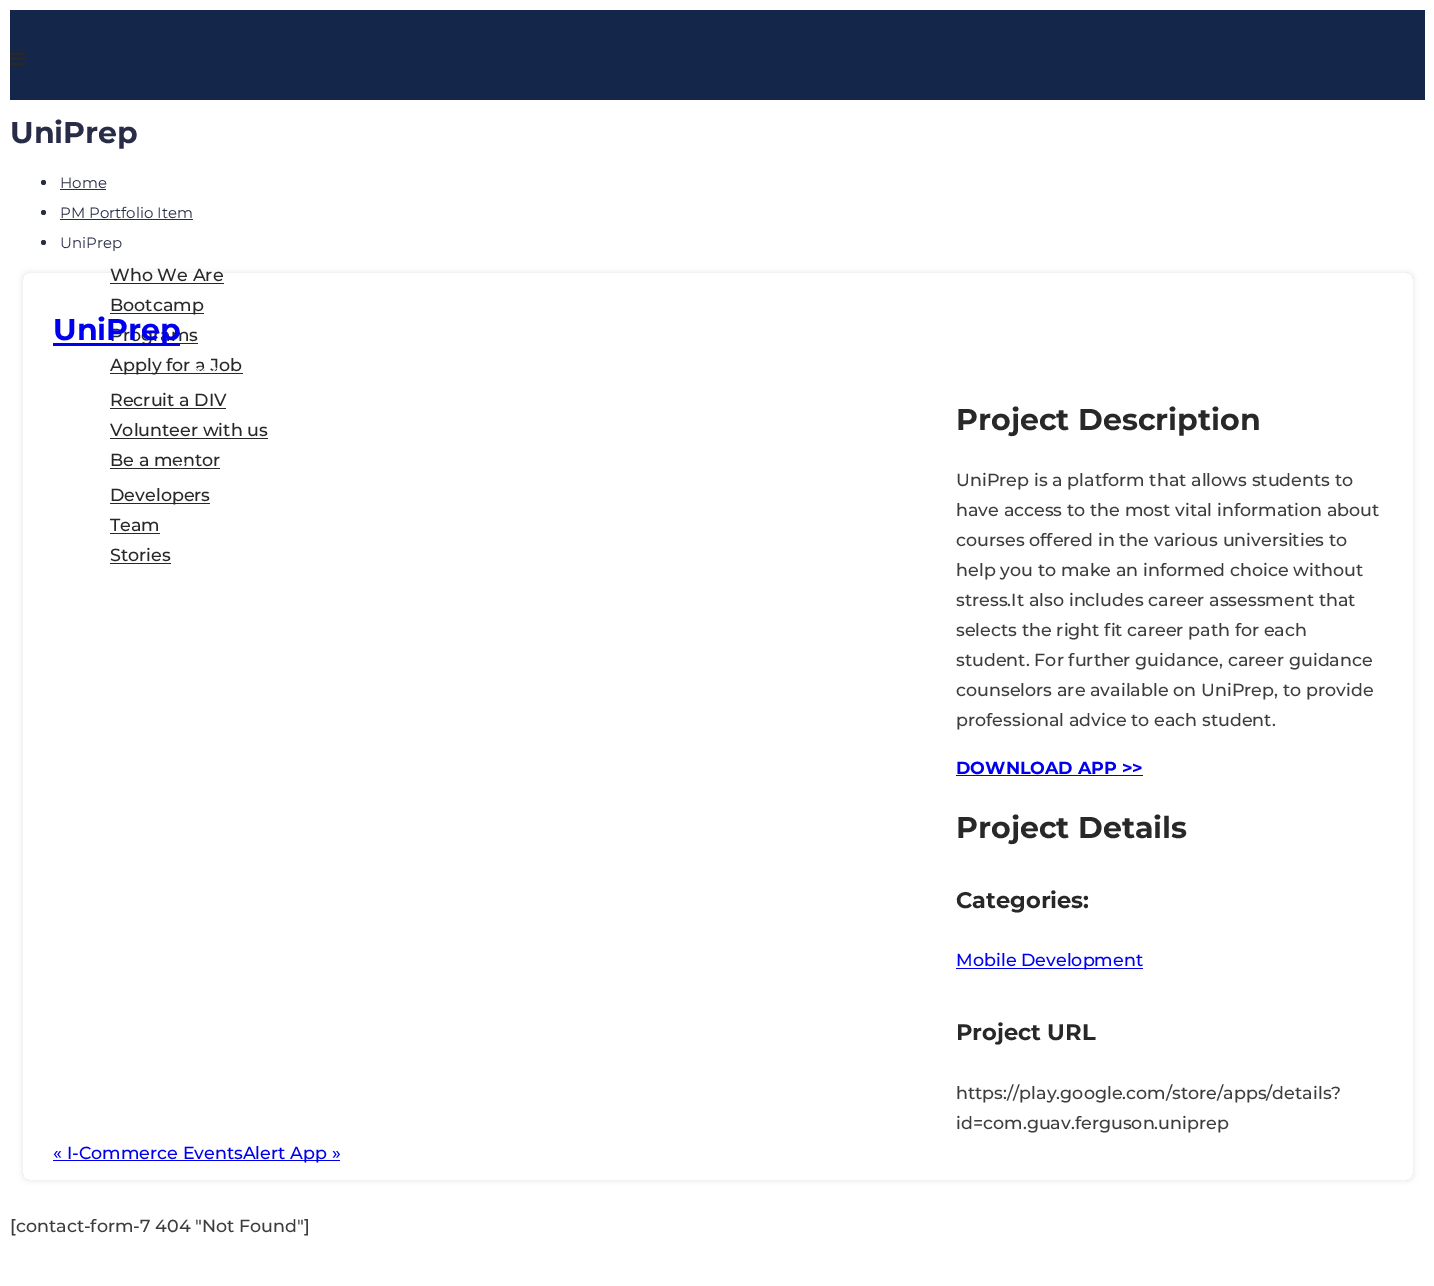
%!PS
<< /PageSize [1434 1286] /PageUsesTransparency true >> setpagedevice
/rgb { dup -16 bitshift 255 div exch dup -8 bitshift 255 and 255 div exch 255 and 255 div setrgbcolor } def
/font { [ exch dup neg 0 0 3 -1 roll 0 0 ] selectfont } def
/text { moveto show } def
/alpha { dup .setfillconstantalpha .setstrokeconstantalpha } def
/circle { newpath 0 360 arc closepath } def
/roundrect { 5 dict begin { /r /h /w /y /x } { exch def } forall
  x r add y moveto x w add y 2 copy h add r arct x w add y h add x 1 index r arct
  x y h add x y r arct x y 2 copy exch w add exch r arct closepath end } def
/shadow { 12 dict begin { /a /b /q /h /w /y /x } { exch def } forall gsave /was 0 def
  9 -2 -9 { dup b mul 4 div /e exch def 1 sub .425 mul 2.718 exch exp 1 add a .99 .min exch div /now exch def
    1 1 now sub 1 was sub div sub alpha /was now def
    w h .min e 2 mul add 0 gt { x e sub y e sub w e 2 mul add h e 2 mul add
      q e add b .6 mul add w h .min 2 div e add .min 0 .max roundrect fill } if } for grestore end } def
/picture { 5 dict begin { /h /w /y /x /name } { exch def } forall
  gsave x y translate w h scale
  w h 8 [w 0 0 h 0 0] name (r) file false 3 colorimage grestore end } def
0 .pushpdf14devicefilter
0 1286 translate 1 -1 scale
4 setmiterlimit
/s1 { /Montserrat-Bold 30 font 16#282C46 rgb } def
/s2 { /Montserrat-Regular 15 font 16#282C46 rgb } def
/s3 { /Montserrat-Medium 17.5 font 16#282828 rgb } def
/s4 { /Montserrat-Bold 30 font 16#0000EE rgb } def
/s5 { /Montserrat-Bold 30 font 16#282828 rgb } def
/s6 { /Montserrat-Medium 17.5 font 16#3D3D3D rgb } def
/s7 { /Montserrat-Bold 17.5 font 16#0000EE rgb } def
/s8 { /Montserrat-Bold 22.5 font 16#282828 rgb } def
/s9 { /Montserrat-Medium 17.5 font 16#0000EE rgb } def
16#FFFFFF rgb
0 0 1434 1286 rectfill
s1
(UniPrep) 10 143 text
43.5 182.5 2.5 circle fill
s2
(Home) 60 188 text
60 189 46 1 rectfill
43.5 212.5 2.5 circle fill
(PM Portfolio Item) 60 218 text
60 219 133 1 rectfill
43.5 242.5 2.5 circle fill
(UniPrep) 60 248 text
16#142649 rgb
10 10 1415 90 rectfill
(pic1.raw) 10 52 15 13 picture
s3
(Who We Are) 110 281 text
110 283 114 1 rectfill
110 313 94 1 rectfill
(Bootcamp) 110 311 text
180 343 18 1 rectfill
(Programs) 110 341 text
110 373 133 1 rectfill
(Apply for a Job) 110 371 text
(pic2.raw) 196 367 9 7 picture
(pic3.raw) 210 367 7 7 picture
(Recruit a DIV) 110 406 text
110 408 116 1 rectfill
(Volunteer with us) 110 436 text
110 438 158 1 rectfill
(Be a mentor) 110 466 text
110 468 110 1 rectfill
(pic4.raw) 175 462 11 7 picture
(pic5.raw) 191 463 6 6 picture
110 503 100 1 rectfill
(Developers) 110 501 text
(Team) 110 531 text
110 533 50 1 rectfill
(Stories) 110 561 text
110 563 61 1 rectfill
gsave
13 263 moveto 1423 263 lineto 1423 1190 lineto 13 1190 lineto closepath 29 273 moveto 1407 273 lineto 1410.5 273 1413 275.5 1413 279 curveto 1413 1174 lineto 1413 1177.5 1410.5 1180 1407 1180 curveto 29 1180 lineto 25.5 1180 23 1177.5 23 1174 curveto 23 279 lineto 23 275.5 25.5 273 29 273 curveto closepath eoclip newpath
16#222222 rgb
23 273 1390 907 6 3 0.13 shadow
grestore
16#0000EE rgb
53 343 127 3 rectfill
s4
(UniPrep) 53 340 text
s5
(Project Description) 956 430 text
s6
(UniPrep is a platform that allows students to) 956 486 text
(have access to the most vital information about) 956 516 text
(courses offered in the various universities to) 956 546 text
(help you to make an informed choice without) 956 576 text
(stress.It also includes career assessment that) 956 606 text
(selects the right fit career path for each) 956 636 text
(student. For further guidance, career guidance) 956 666 text
(counselors are available on UniPrep, to provide) 956 696 text
(professional advice to each student.) 956 726 text
s7
(DOWNLOAD APP >>) 956 774 text
956 775 187 1 rectfill
s5
(Project Details) 956 838 text
s8
(Categories:) 956 908 text
16#0000EE rgb
956 968 187 1 rectfill
s9
(Mobile Development) 956 966 text
s8
(Project URL) 956 1040 text
s6
(https://play.google.com/store/apps/details?) 956 1099 text
(id=com.guav.ferguson.uniprep) 956 1129 text
16#0000EE rgb
53 1160 287 1 rectfill
(« I-Commerce EventsAlert App ») 53 1159 text
s6
([contact-form-7 404 "Not Found"]) 10 1232 text
.poppdf14devicefilter showpage
